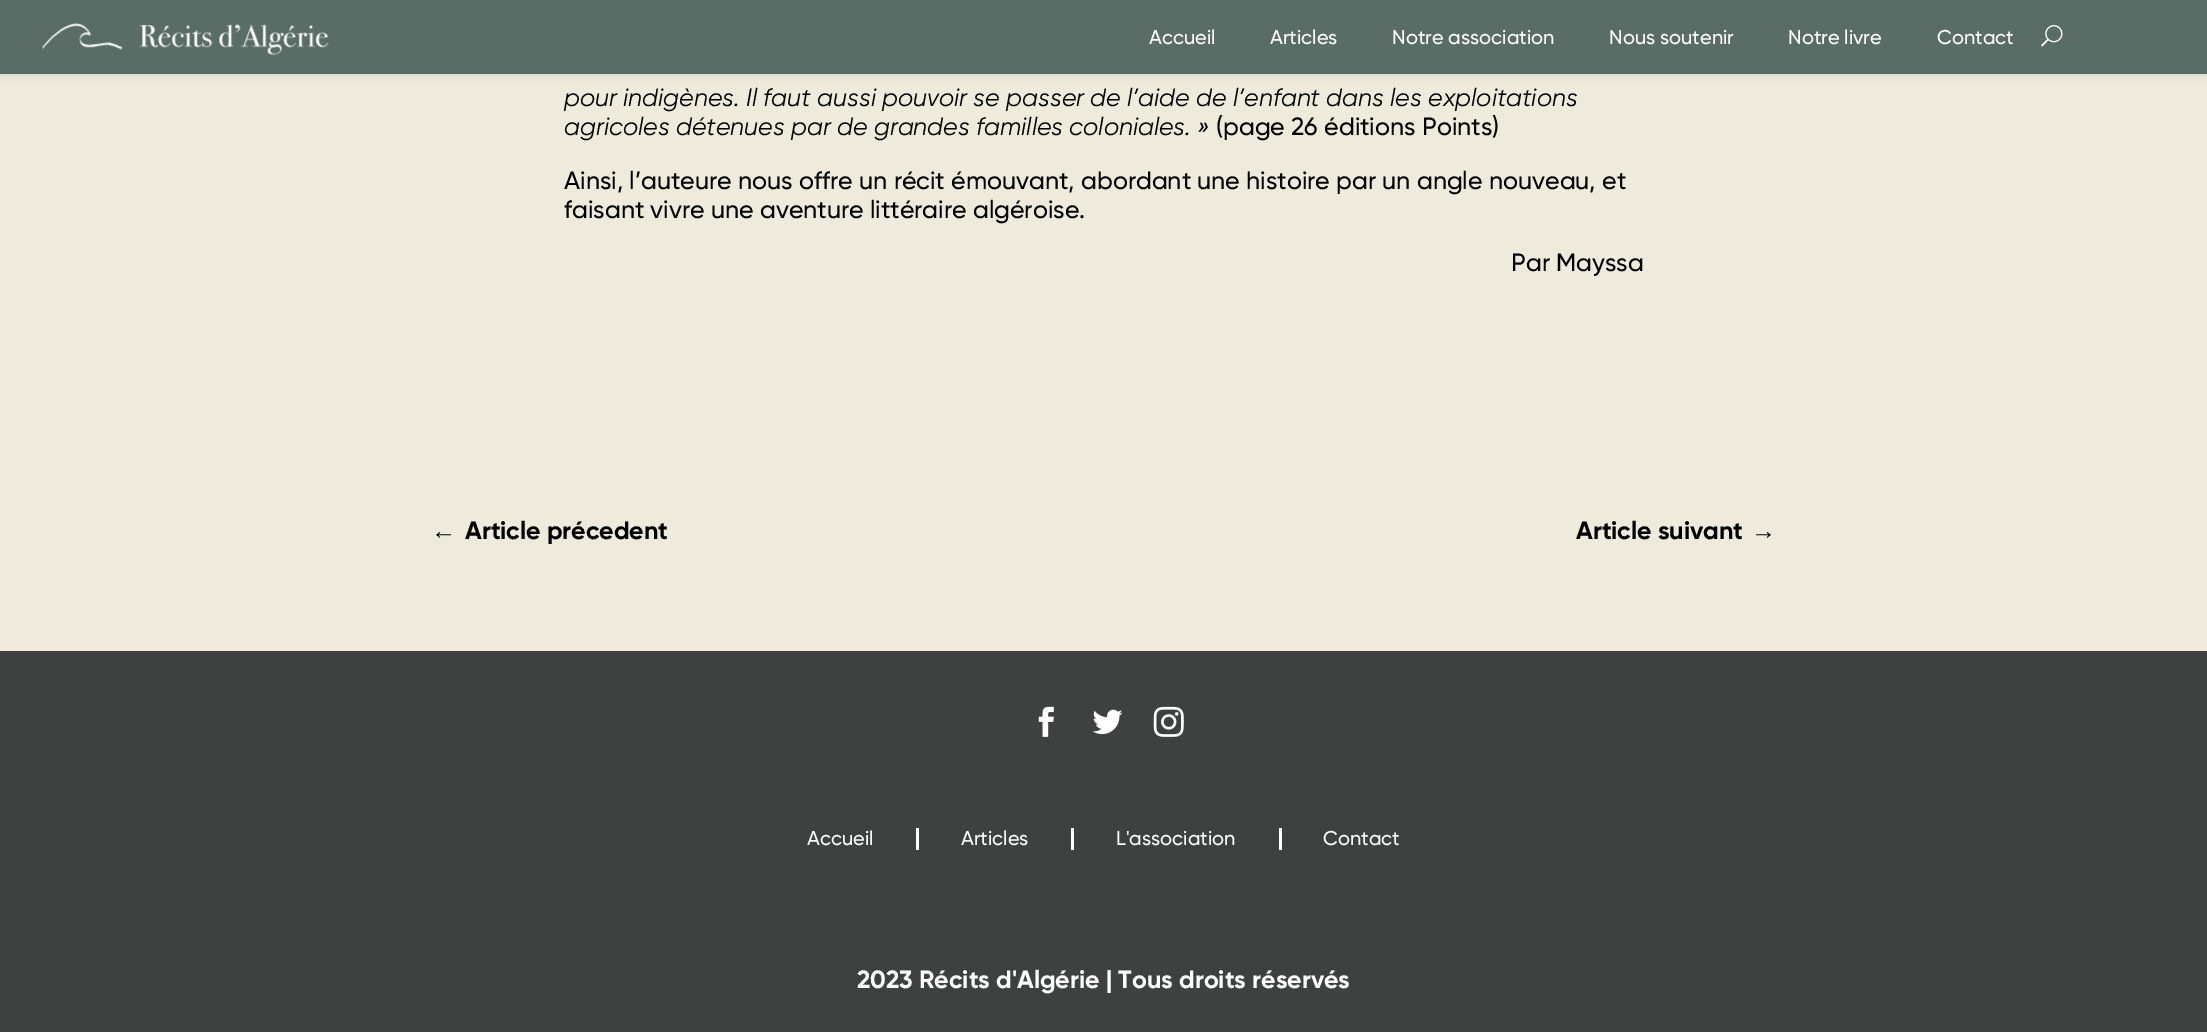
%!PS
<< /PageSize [2207 1032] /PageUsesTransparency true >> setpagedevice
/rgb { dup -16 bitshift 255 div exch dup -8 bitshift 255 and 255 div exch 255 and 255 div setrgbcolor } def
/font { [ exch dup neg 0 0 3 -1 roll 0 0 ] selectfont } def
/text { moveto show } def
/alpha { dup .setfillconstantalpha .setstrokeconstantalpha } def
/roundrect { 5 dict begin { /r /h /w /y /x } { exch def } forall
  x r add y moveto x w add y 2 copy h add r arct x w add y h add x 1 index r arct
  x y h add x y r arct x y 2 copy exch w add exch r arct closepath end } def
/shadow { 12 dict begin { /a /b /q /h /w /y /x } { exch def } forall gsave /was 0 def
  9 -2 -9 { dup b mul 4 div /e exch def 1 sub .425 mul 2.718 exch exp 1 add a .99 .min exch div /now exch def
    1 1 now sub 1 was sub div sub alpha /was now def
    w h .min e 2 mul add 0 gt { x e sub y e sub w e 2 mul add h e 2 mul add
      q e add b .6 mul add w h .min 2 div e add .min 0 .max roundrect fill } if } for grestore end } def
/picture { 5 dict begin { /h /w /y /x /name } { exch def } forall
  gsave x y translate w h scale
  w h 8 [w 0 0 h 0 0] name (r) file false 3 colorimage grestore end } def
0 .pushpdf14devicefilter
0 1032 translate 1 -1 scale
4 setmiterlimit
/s1 { /Gilroy-Medium 20 font 16#FFFFFF rgb } def
/s2 { /Gilroy-Italic 25 font 16#000000 rgb } def
/s3 { /Gilroy-Medium 25 font 16#000000 rgb } def
/s4 { /LiberationSerif-Bold 25 font 16#000000 rgb } def
/s5 { /Gilroy-Bold 25 font 16#000000 rgb } def
/s6 { /Gilroy-Bold 25 font 16#FFFFFF rgb } def
16#3F4140 rgb
0 0 2207 1032 rectfill
16#EEEBDD rgb
0 74 2207 577 rectfill
16#000000 rgb
0 0 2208 74 0 4.5 0.1 shadow
16#596D66 rgb
0 0 2207 74 rectfill
(pic1.raw) 42 23 287 33 picture
s1
(Accueil) 1149 44 text
(Articles) 1270 44 text
(Notre association) 1392 44 text
(Nous soutenir) 1609 44 text
(Notre livre) 1788 44 text
(Contact) 1937 44 text
(pic2.raw) 2041 25 22 22 picture
s2
(pour indigènes. Il faut aussi pouvoir se passer de l’aide de l’enfant dans les exploitations) 564 106 text
(agricoles détenues par de grandes familles coloniales. ») 564 135 text
s3
(\(page 26 éditions Points\)) 1216 135 text
(Ainsi, l’auteure nous offre un récit émouvant, abordant une histoire par un angle nouveau, et) 564 189 text
(faisant vivre une aventure littéraire algéroise.) 564 218 text
(Par Mayssa) 1511 271 text
s4
(←) 431 539 text
s5
(Article précedent) 465 539 text
(Article suivant) 1576 539 text
s4
(→) 1751 539 text
(pic3.raw) 1038 706 16 31 picture
(pic4.raw) 1092 709 31 26 picture
(pic5.raw) 1153 706 31 31 picture
s1
(Accueil) 807 845 text
916 828 3 22 rectfill
(Articles) 961 845 text
1071 828 3 22 rectfill
(L'association) 1116 845 text
1279 828 3 22 rectfill
(Contact) 1323 845 text
s6
(2023 Récits d'Algérie | Tous droits réservés) 857 988 text
.poppdf14devicefilter showpage
